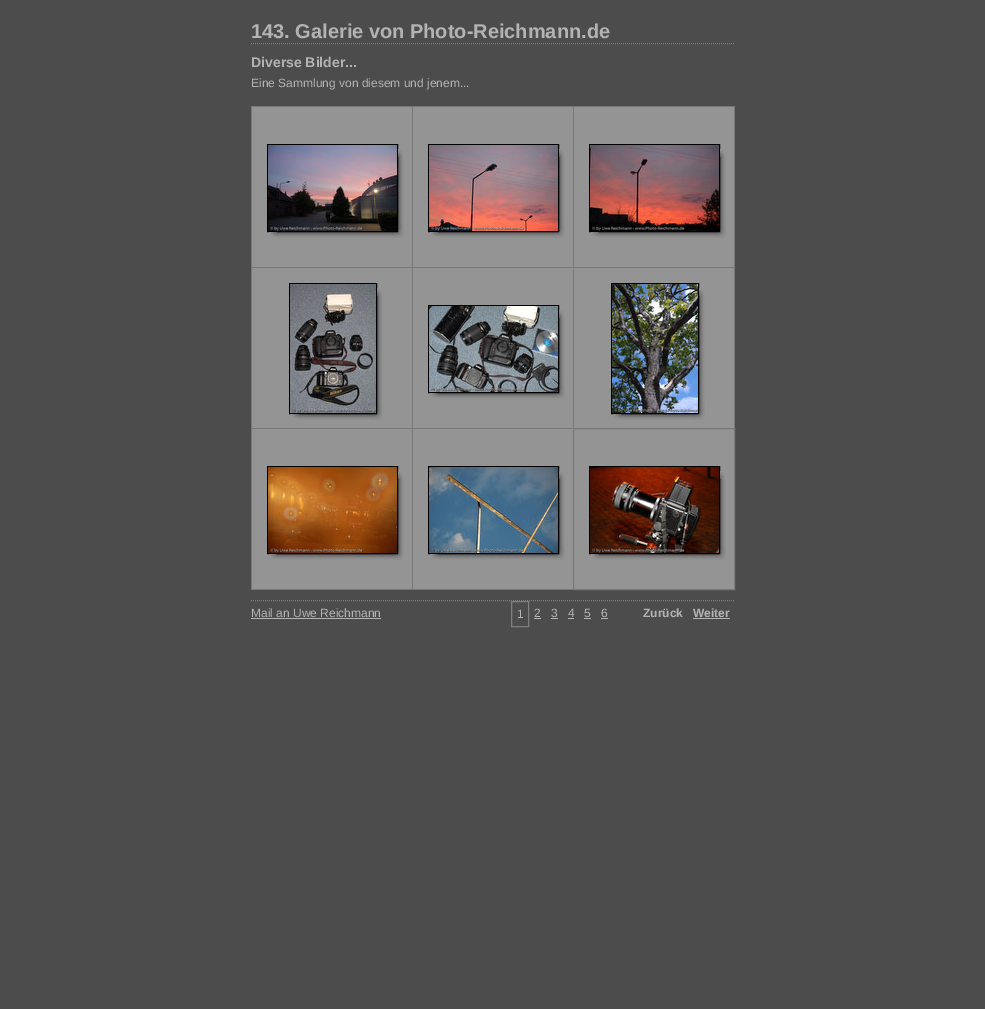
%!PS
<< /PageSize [985 1009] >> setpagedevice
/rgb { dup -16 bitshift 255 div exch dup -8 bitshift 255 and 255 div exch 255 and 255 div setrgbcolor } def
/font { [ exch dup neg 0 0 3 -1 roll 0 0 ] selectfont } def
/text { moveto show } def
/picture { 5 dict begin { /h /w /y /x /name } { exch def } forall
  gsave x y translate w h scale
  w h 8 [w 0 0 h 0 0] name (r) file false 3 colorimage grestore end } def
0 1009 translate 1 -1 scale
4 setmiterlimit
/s1 { /LiberationSans-Bold 20 font 16#B3B3B3 rgb } def
/s2 { /LiberationSans-Bold 14 font 16#B3B3B3 rgb } def
/s3 { /LiberationSans-Regular 12 font 16#B3B3B3 rgb } def
/s4 { /LiberationSans-Bold 12 font 16#B3B3B3 rgb } def
16#4C4C4C rgb
0 0 985 1009 rectfill
16#7F7F7F rgb
[1 1] 0 setdash
251 43.5 moveto 735 43.5 lineto stroke
s1
(143. Galerie von Photo-Reichmann.de) 251 38 text
s2
(Diverse Bilder...) 251 67 text
s3
(Eine Sammlung von diesem und jenem...) 251 87 text
16#7F7F7F rgb
251 600.5 moveto 735 600.5 lineto stroke
16#949494 rgb
252 107 160 160 rectfill
16#787878 rgb
251 106 484 1 rectfill
251 106 1 161 rectfill
(pic1.raw) 277 157 127 81 picture
16#000000 rgb
[] 0 setdash
267.5 144.5 130 87 rectstroke
(pic2.raw) 268 145 129 86 picture
(pic3.raw) 398 149 5 8 picture
(pic4.raw) 269 232 8 5 picture
16#949494 rgb
413 107 160 160 rectfill
16#787878 rgb
412 106 1 161 rectfill
(pic1.raw) 438 157 127 81 picture
16#000000 rgb
428.5 144.5 130 87 rectstroke
(pic5.raw) 429 145 129 86 picture
(pic3.raw) 559 149 5 8 picture
(pic4.raw) 430 232 8 5 picture
16#949494 rgb
574 107 160 160 rectfill
16#787878 rgb
734 106 1 161 rectfill
573 106 1 161 rectfill
(pic1.raw) 599 157 127 81 picture
16#000000 rgb
589.5 144.5 130 87 rectstroke
(pic6.raw) 590 145 129 86 picture
(pic3.raw) 720 149 5 8 picture
(pic4.raw) 591 232 8 5 picture
16#949494 rgb
252 268 160 160 rectfill
16#787878 rgb
251 267 484 1 rectfill
251 267 1 161 rectfill
(pic7.raw) 299 296 84 124 picture
16#000000 rgb
289.5 283.5 87 130 rectstroke
(pic8.raw) 290 284 86 129 picture
(pic3.raw) 377 288 5 8 picture
(pic4.raw) 291 414 8 5 picture
16#949494 rgb
413 268 160 160 rectfill
16#787878 rgb
412 267 1 161 rectfill
(pic1.raw) 438 318 127 81 picture
16#000000 rgb
428.5 305.5 130 87 rectstroke
(pic9.raw) 429 306 129 86 picture
(pic3.raw) 559 310 5 8 picture
(pic4.raw) 430 393 8 5 picture
16#949494 rgb
574 268 160 160 rectfill
16#787878 rgb
734 267 1 161 rectfill
573 267 1 161 rectfill
(pic7.raw) 621 296 84 124 picture
16#000000 rgb
611.5 283.5 87 130 rectstroke
(pic10.raw) 612 284 86 129 picture
(pic3.raw) 699 288 5 8 picture
(pic4.raw) 613 414 8 5 picture
16#949494 rgb
252 429 160 160 rectfill
16#787878 rgb
251 428 322 1 rectfill
251 589 322 1 rectfill
251 428 1 162 rectfill
(pic1.raw) 277 479 127 81 picture
16#000000 rgb
267.5 466.5 130 87 rectstroke
(pic11.raw) 268 467 129 86 picture
(pic3.raw) 398 471 5 8 picture
(pic4.raw) 269 554 8 5 picture
16#949494 rgb
413 429 160 160 rectfill
16#787878 rgb
412 428 1 162 rectfill
(pic1.raw) 438 479 127 81 picture
16#000000 rgb
428.5 466.5 130 87 rectstroke
(pic12.raw) 429 467 129 86 picture
(pic3.raw) 559 471 5 8 picture
(pic4.raw) 430 554 8 5 picture
16#949494 rgb
573.5 428.5 moveto 734.5 428.5 lineto 734.5 589.5 lineto 573.5 589.5 lineto closepath gsave fill grestore
16#787878 rgb
stroke
(pic1.raw) 599 479 127 81 picture
16#000000 rgb
589.5 466.5 130 87 rectstroke
(pic13.raw) 590 467 129 86 picture
(pic3.raw) 720 471 5 8 picture
(pic4.raw) 591 554 8 5 picture
s3
(Mail an Uwe Reichmann) 251 617 text
251 618 130 1 rectfill
16#7F7F7F rgb
511.5 601.5 17 25 rectstroke
s3
(1) 517 618 text
(2) 534 617 text
534 618 7 1 rectfill
(3) 551 617 text
551 618 7 1 rectfill
(4) 568 617 text
568 618 6 1 rectfill
(5) 584 617 text
584 618 7 1 rectfill
(6) 601 617 text
601 618 7 1 rectfill
s4
(Zurück) 643 617 text
(Weiter) 693 617 text
693 618 37 1 rectfill
showpage
